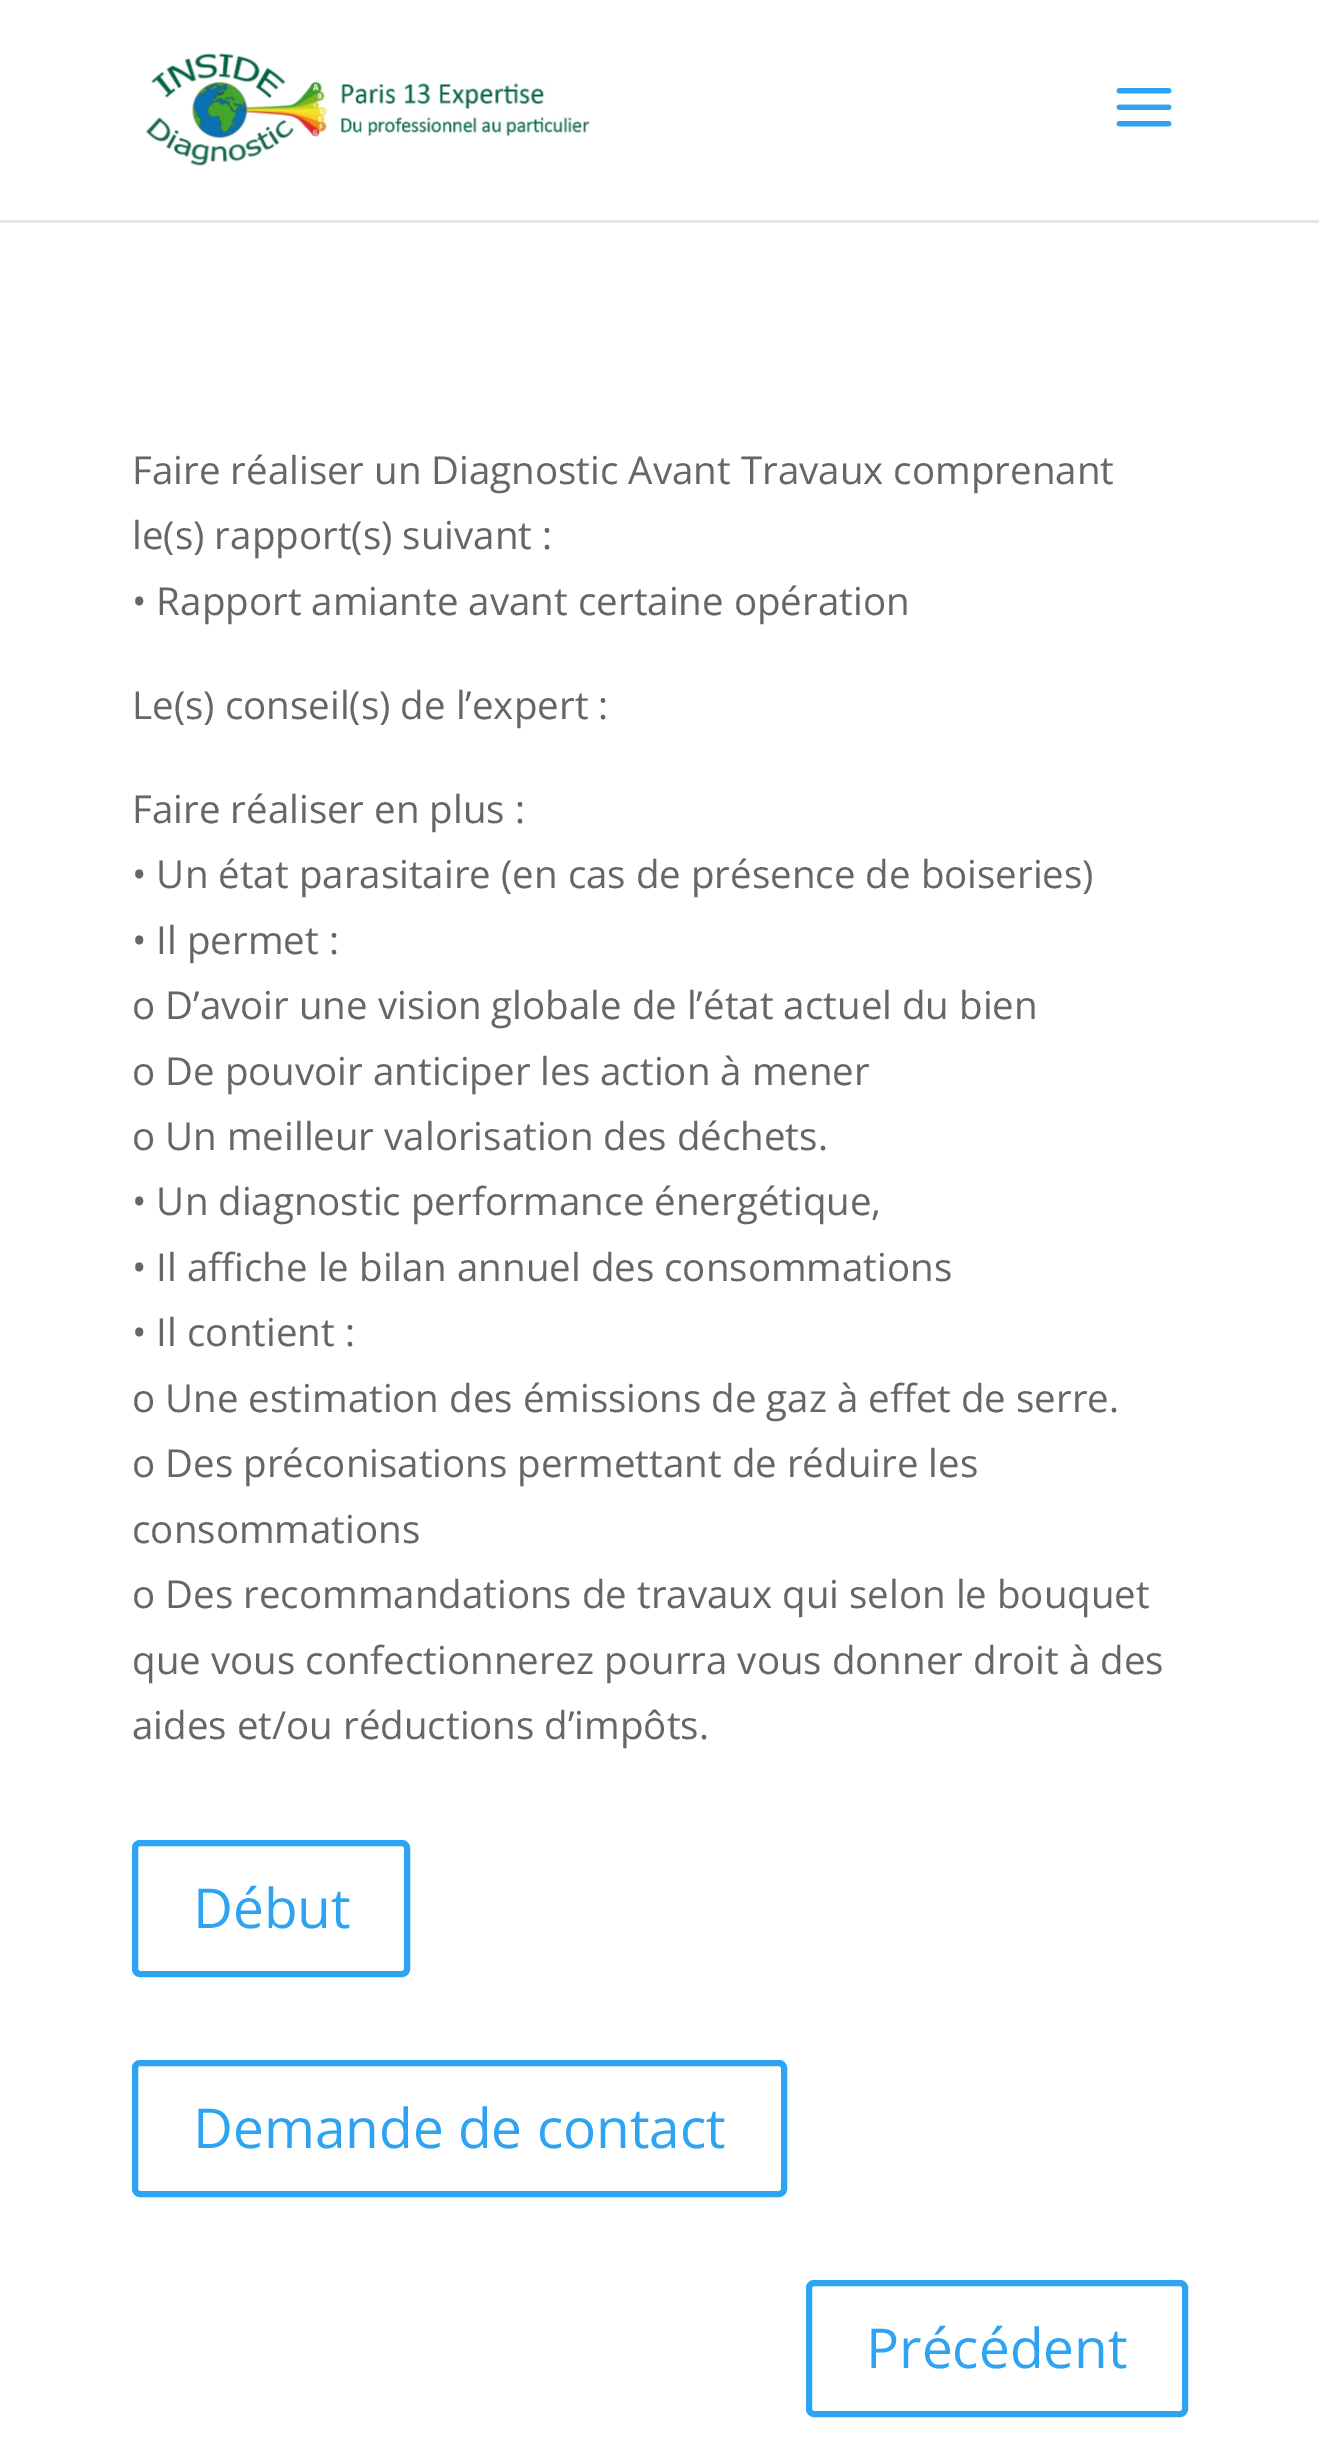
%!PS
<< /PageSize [1319 2462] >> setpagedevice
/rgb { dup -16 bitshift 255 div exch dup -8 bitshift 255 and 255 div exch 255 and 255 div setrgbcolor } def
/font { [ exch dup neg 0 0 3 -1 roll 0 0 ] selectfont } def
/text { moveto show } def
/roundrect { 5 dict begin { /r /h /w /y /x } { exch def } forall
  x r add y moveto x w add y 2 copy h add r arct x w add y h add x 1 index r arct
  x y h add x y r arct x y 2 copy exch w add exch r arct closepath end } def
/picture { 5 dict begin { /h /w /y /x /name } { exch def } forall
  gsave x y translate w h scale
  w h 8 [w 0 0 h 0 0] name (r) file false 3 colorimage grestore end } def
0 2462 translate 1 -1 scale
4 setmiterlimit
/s1 { /OpenSans-Regular 38.5 font 16#666666 rgb } def
/s2 { /OpenSans-Regular 55 font 16#2EA3F2 rgb } def
16#FFFFFF rgb
0 0 1319 2462 rectfill
16#E6E6E6 rgb
0 220 1319 3 rectfill
(pic1.raw) 145 53 445 113 picture
(pic2.raw) 1116 88 56 39 picture
s1
(Faire réaliser un Diagnostic Avant Travaux comprenant) 132 484 text
(le\(s\) rapport\(s\) suivant :) 132 549 text
(• Rapport amiante avant certaine opération) 132 615 text
(Le\(s\) conseil\(s\) de l’expert :) 132 719 text
(Faire réaliser en plus :) 132 823 text
(• Un état parasitaire \(en cas de présence de boiseries\)) 132 888 text
(• Il permet :) 132 954 text
(o D’avoir une vision globale de l’état actuel du bien) 132 1019 text
(o De pouvoir anticiper les action à mener) 132 1085 text
(o Un meilleur valorisation des déchets.) 132 1150 text
(• Un diagnostic performance énergétique,) 132 1215 text
(• Il affiche le bilan annuel des consommations) 132 1281 text
(• Il contient :) 132 1346 text
(o Une estimation des émissions de gaz à effet de serre.) 132 1412 text
(o Des préconisations permettant de réduire les) 132 1477 text
(consommations) 132 1543 text
(o Des recommandations de travaux qui selon le bouquet) 132 1608 text
(que vous confectionnerez pourra vous donner droit à des) 132 1674 text
(aides et/ou réductions d’impôts.) 132 1739 text
16#2EA3F2 rgb
6 setlinewidth
135 1843 272 131 5 roundrect stroke
s2
(Début) 193 1928 text
135 2063 649 131 5 roundrect stroke
(Demande de contact) 193 2148 text
809 2283 376 131 5 roundrect stroke
(Précédent) 866 2368 text
showpage
